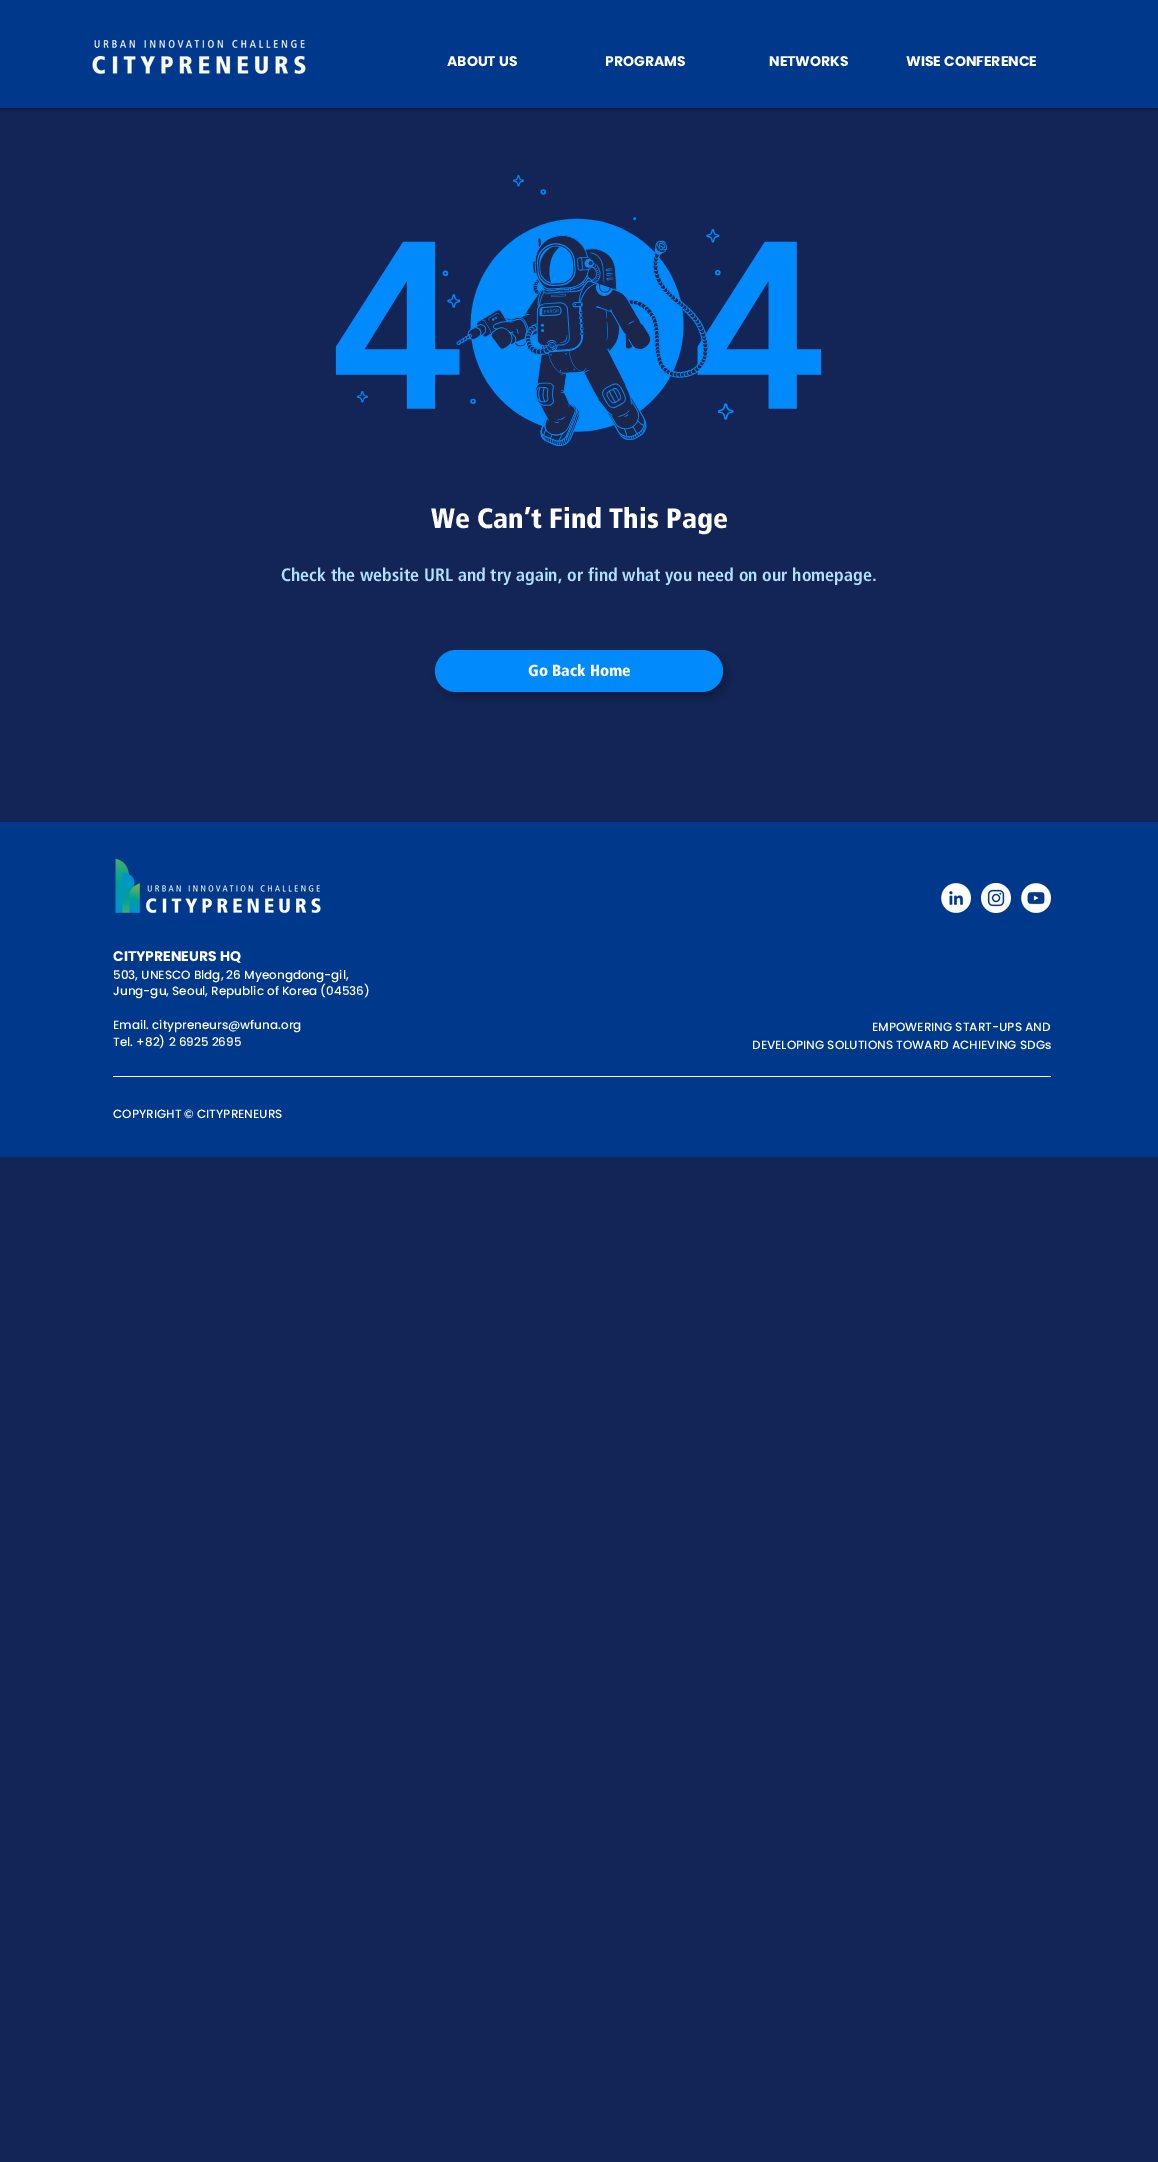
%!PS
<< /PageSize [1158 2162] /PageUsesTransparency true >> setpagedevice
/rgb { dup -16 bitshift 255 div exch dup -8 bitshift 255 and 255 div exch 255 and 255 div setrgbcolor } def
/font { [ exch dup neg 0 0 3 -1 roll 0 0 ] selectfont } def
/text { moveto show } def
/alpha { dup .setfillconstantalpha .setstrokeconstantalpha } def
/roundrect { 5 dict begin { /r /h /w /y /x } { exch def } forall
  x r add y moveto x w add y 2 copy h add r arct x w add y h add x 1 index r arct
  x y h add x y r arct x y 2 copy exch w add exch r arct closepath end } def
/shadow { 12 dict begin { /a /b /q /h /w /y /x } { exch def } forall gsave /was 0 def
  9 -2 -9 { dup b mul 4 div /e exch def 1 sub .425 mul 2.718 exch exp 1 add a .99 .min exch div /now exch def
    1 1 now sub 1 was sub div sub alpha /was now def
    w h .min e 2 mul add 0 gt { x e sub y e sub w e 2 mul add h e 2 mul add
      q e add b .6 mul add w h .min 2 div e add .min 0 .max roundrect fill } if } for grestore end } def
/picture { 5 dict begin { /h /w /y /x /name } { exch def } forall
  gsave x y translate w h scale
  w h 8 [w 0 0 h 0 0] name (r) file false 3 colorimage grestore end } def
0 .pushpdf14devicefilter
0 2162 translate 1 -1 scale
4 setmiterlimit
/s1 { /Poppins-Bold 14 font 16#FFFFFF rgb } def
/s2 { /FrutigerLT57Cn-Black 28 font 16#FFFFFF rgb } def
/s3 { /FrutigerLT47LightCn-Bold 18 font 16#B3DFFF rgb } def
/s4 { /FrutigerLT57Cn-Black 16 font 16#FFFFFF rgb } def
/s5 { /Poppins-Medium 12 font 16#FFFFFF rgb } def
16#132557 rgb
0 0 1158 2162 rectfill
16#000000 rgb
0 0 1158 108 0 2.5 0.7 shadow
16#00398C rgb
0 0 1158 108 rectfill
(pic1.raw) 92 39 214 35 picture
s1
(ABOUT US) 447 66 text
(PROGRAMS) 605 66 text
(NETWORKS) 769 66 text
(WISE CONFERENCE) 906 66 text
(pic2.raw) 335 175 487 271 picture
s2
(We Can’t Find This Page) 431 528 text
s3
(Check the website URL and try again, or find what you need on our homepage.) 281 581 text
16#000000 rgb
438 655 288 42 21 6 0.32 shadow
16#008AFC rgb
435 650 288 42 21 roundrect fill
s4
(Go Back Home) 528 676 text
16#00398C rgb
0 822 1158 335 rectfill
(pic3.raw) 115 858 206 55 picture
(pic4.raw) 941 883 30 30 picture
(pic5.raw) 981 883 30 30 picture
(pic6.raw) 1021 883 30 30 picture
s1
(CITYPRENEURS HQ) 113 961 text
s5
(503, UNESCO Bldg, 26 Myeongdong-gil,) 113 979 text
(Jung-gu, Seoul, Republic of Korea \(04536\)) 113 995 text
(Email. citypreneurs@wfuna.org) 113 1029 text
(Tel. +82\) 2 6925 2695) 113 1046 text
(EMPOWERING START-UPS AND) 872 1031 text
(DEVELOPING SOLUTIONS TOWARD ACHIEVING SDGs) 752 1049 text
113 1076 938 1 rectfill
(COPYRIGHT © CITYPRENEURS) 113 1118 text
.poppdf14devicefilter showpage
